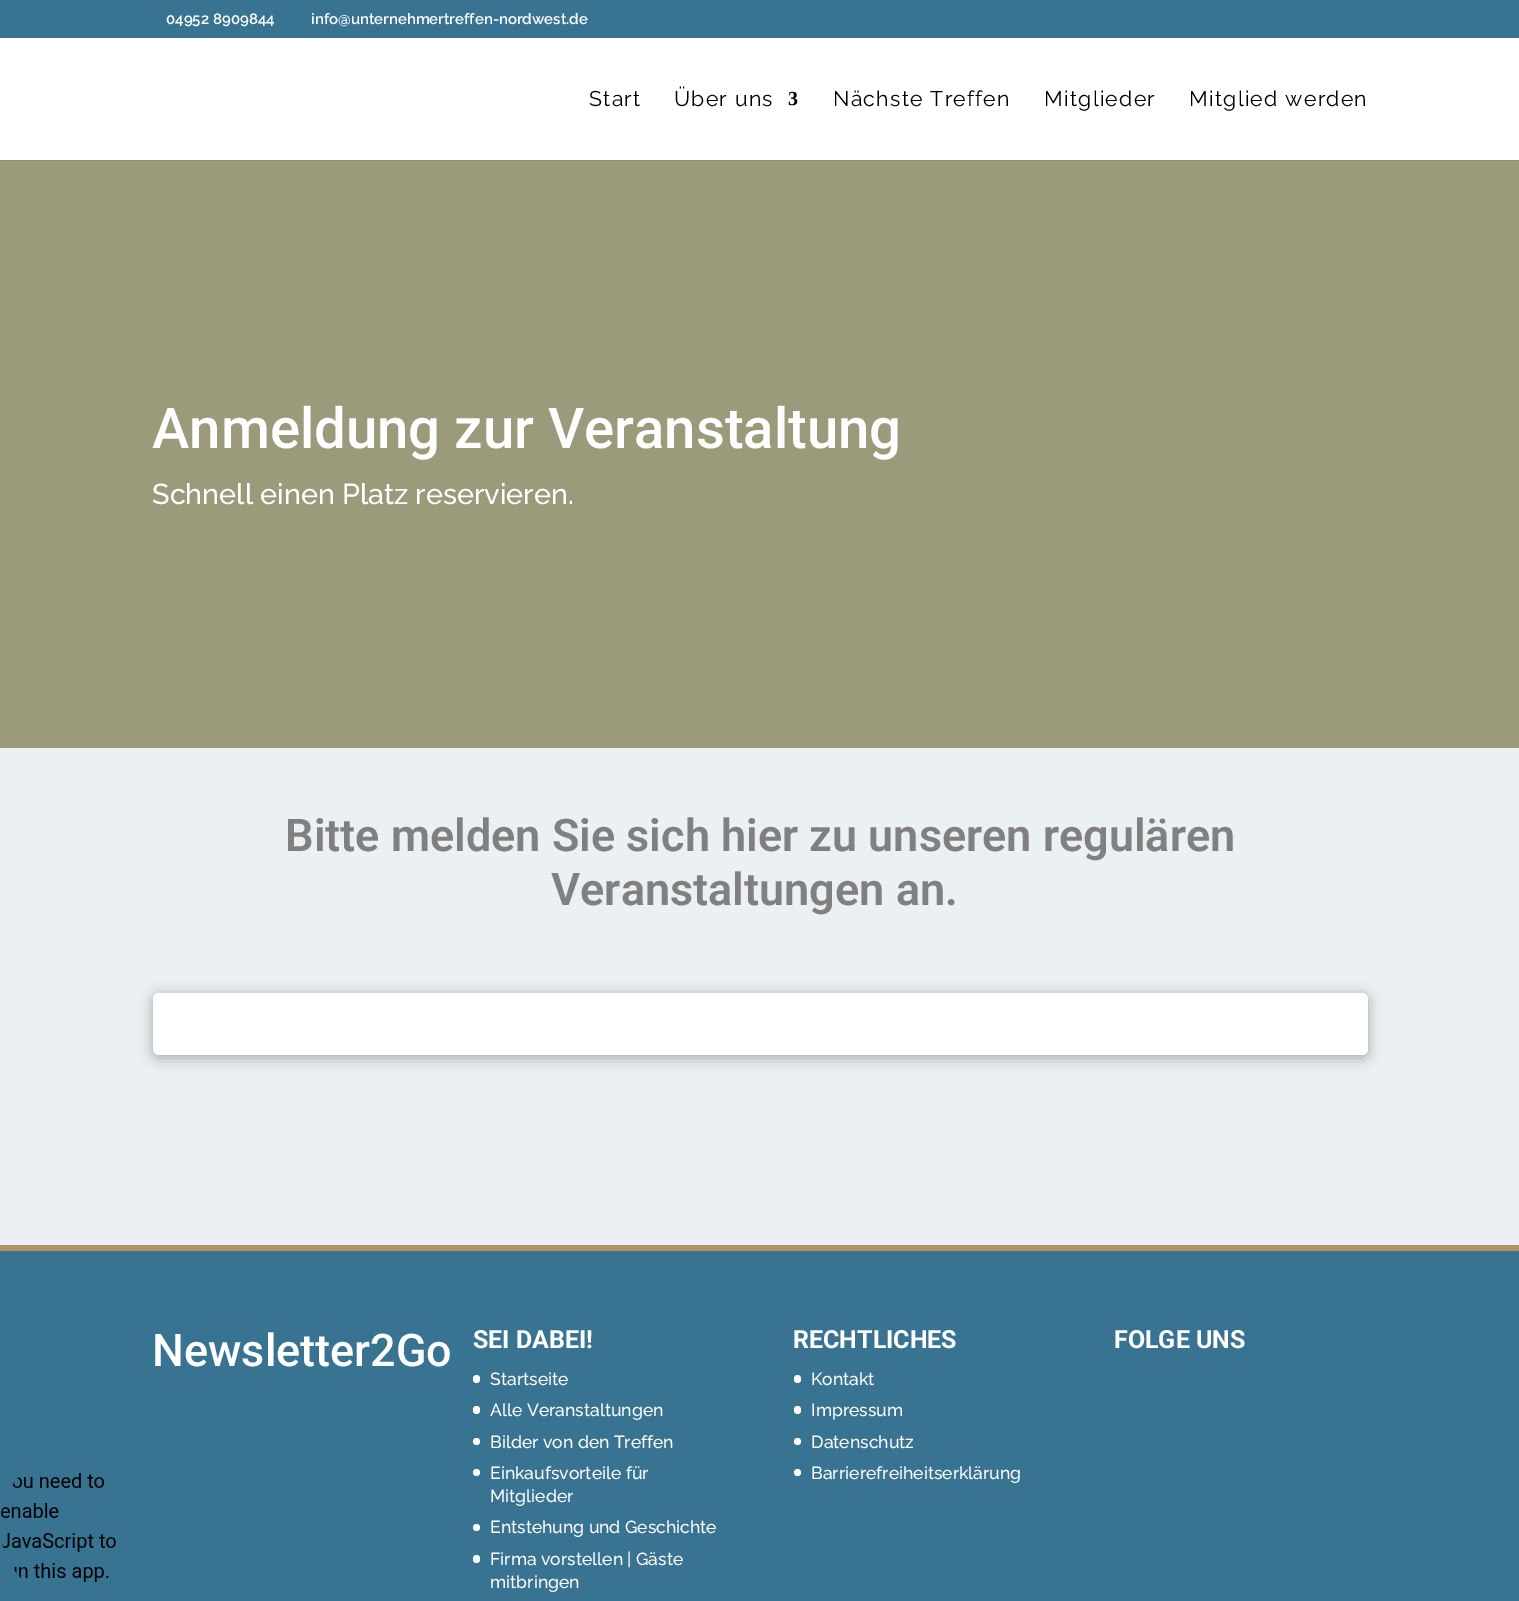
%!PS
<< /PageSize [1519 1601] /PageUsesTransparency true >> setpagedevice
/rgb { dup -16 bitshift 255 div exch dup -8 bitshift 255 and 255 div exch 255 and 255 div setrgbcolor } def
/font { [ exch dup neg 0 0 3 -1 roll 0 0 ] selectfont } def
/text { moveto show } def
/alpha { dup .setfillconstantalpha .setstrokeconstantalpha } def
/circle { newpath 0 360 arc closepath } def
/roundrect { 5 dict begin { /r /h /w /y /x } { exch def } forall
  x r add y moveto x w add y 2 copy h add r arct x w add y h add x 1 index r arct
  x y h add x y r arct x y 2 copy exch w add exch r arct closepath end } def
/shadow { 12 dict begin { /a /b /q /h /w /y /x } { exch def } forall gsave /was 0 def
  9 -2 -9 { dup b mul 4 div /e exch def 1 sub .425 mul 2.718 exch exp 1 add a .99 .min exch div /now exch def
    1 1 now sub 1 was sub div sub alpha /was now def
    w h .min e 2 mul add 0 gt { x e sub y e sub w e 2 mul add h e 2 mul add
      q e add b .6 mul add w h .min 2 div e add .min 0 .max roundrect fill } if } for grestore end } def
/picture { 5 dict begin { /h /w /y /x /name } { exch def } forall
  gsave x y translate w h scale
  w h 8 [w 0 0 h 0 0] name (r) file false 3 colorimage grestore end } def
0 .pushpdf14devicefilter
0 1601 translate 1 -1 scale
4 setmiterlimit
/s1 { /Raleway-SemiBold 15 font 16#FFFFFF rgb } def
/s2 { /Roboto-Medium 56.25 font 16#FFFFFF rgb } def
/s3 { /Raleway-Medium 28.75 font 16#FFFFFF rgb } def
/s4 { /Roboto-SemiBold 45 font 16#808080 rgb } def
/s5 { /Roboto-Medium 45 font 16#FFFFFF rgb } def
/s6 { /Roboto-Bold 25 font 16#FFFFFF rgb } def
/s7 { /Raleway-Medium 17.5 font 16#FFFFFF rgb } def
16#FFFFFF rgb
0 0 1519 1601 rectfill
16#397392 rgb
0 1251 1519 350 rectfill
(pic1.raw) 1 1473 115 109 picture
0 0 1519 38 rectfill
s1
(04952 8909844) 166 24 text
(info@unternehmertreffen-nordwest.de) 311 24 text
16#8C8C70 rgb
0 160 1519 1 rectfill
/Raleway-Regular 21.25 font
16#000000 rgb
589 106 moveto 1.25 0 (Start) ashow
674 106 moveto 1.25 0 (Über uns) ashow
/LiberationSerif-Bold 20 font
788 105 moveto 1.25 0 (3) ashow
/Raleway-Regular 21.25 font
833 106 moveto 1.25 0 (Nächste Treffen) ashow
1044 106 moveto 1.25 0 (Mitglieder) ashow
1189 106 moveto 1.25 0 (Mitglied werden) ashow
16#9B9B7C rgb
0 161 1519 587 rectfill
s2
(Anmeldung zur Veranstaltung) 152 448 text
s3
(Schnell einen Platz reservieren.) 152 504 text
16#EAF0F3 rgb
0 748 1519 497 rectfill
s4
(Bitte melden Sie sich hier zu unseren regulären) 285 851 text
(Veranstaltungen an.) 551 905 text
16#000000 rgb
153 995 1215 63 6 7 0.3 shadow
16#FFFFFF rgb
153 993 1215 62 6 roundrect fill
16#B19260 rgb
0 1245 1519 6 rectfill
s5
(Newsletter2Go) 152 1366 text
s6
(SEI DABEI!) 473 1348 text
473 1375 7 8 3.5 roundrect fill
s7
(Startseite) 490 1385 text
473 1406 7 8 3.5 roundrect fill
(Alle Veranstaltungen) 490 1416 text
476.5 1441.5 3.5 circle fill
(Bilder von den Treffen) 490 1448 text
476.5 1472.5 3.5 circle fill
(Einkaufsvorteile für) 490 1479 text
(Mitglieder) 490 1502 text
476.5 1527.5 3.5 circle fill
(Entstehung und Geschichte) 490 1533 text
473 1555 7 8 3.5 roundrect fill
(Firma vorstellen | Gäste) 490 1565 text
(mitbringen) 490 1588 text
s6
(RECHTLICHES) 793 1348 text
794 1375 7 8 3.5 roundrect fill
s7
(Kontakt) 811 1385 text
794 1406 7 8 3.5 roundrect fill
(Impressum) 811 1416 text
797.5 1441.5 3.5 circle fill
(Datenschutz) 811 1448 text
797.5 1472.5 3.5 circle fill
(Barrierefreiheitserklärung) 811 1479 text
s6
(FOLGE UNS) 1114 1348 text
.poppdf14devicefilter showpage
